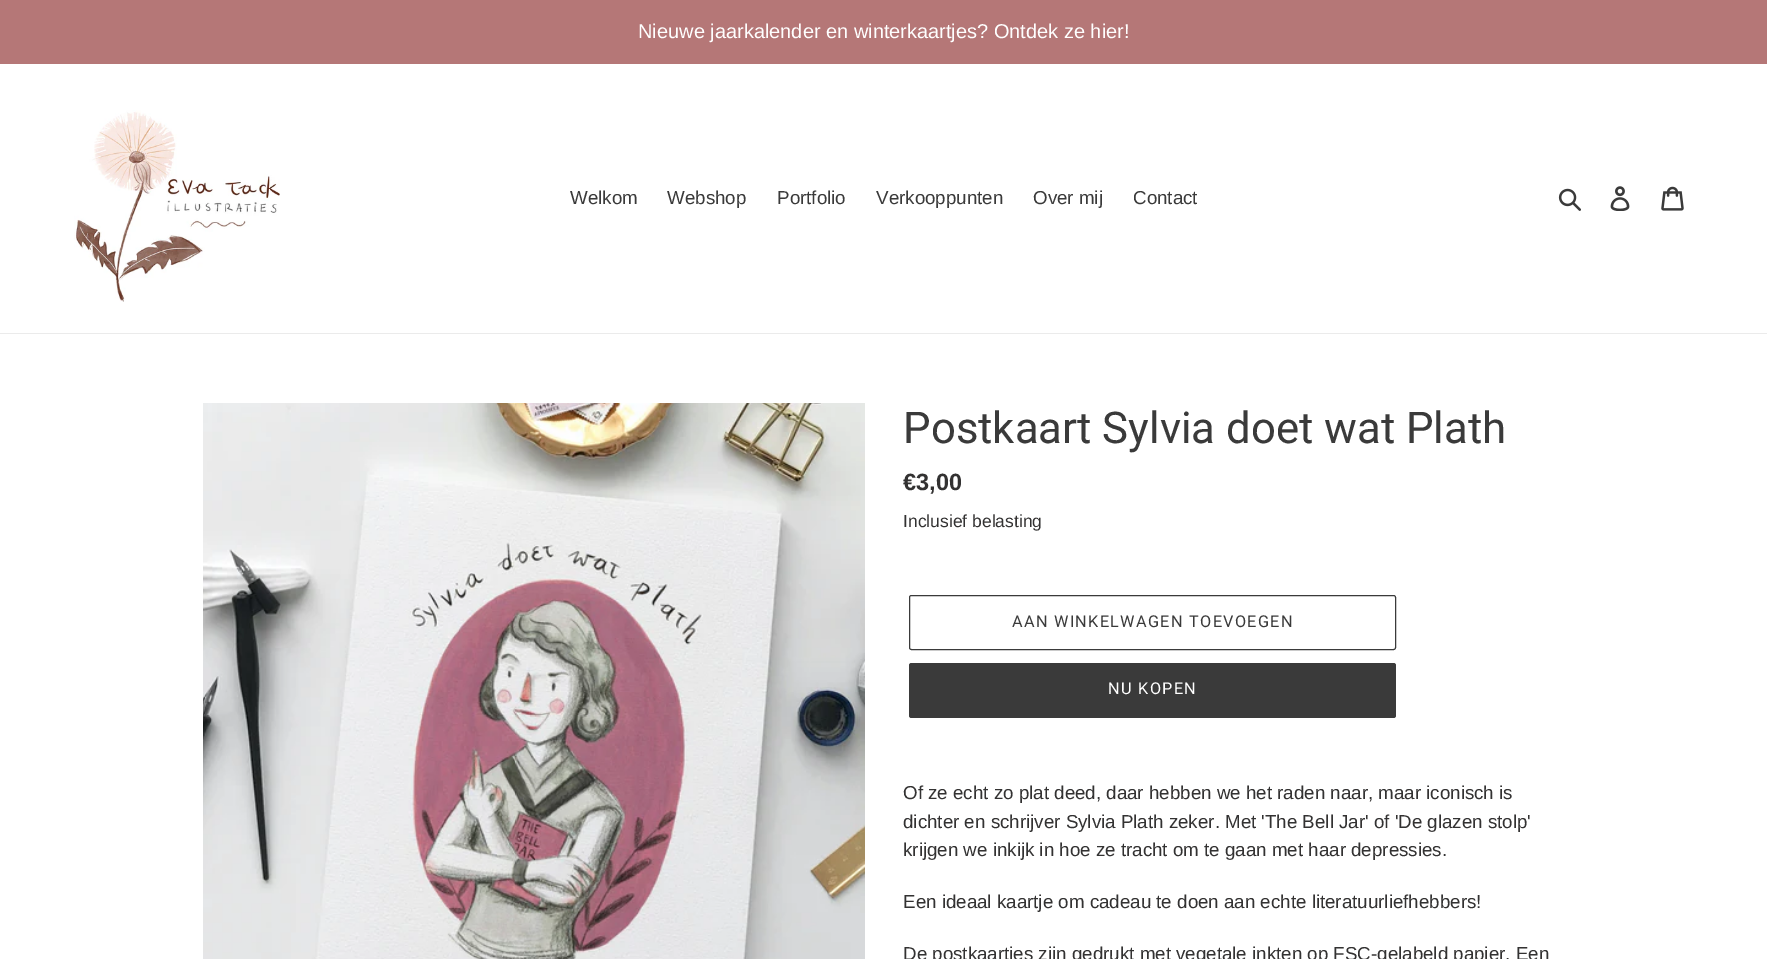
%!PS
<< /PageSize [1767 959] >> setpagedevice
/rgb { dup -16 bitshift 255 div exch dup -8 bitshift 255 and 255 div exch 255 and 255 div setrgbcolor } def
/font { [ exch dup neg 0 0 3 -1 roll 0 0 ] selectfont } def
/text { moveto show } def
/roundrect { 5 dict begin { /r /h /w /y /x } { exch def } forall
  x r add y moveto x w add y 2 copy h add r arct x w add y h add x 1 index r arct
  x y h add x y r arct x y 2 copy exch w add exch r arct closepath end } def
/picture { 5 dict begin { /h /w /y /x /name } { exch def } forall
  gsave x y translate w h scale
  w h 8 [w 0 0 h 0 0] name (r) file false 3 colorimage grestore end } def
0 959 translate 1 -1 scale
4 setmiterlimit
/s1 { /LiberationSans-Regular 20 font 16#FFFFFF rgb } def
/s2 { /LiberationSans-Regular 18.75 font 16#3A3A3A rgb } def
/s3 { /Roboto-Regular 43.75 font 16#3A3A3A rgb } def
/s4 { /LiberationSans-Bold 23.5 font 16#333232 rgb } def
/s5 { /LiberationSans-Regular 17.5 font 16#333232 rgb } def
/s6 { /LiberationSans-Regular 18.75 font 16#333232 rgb } def
16#FFFFFF rgb
0 0 1767 959 rectfill
16#B57777 rgb
0 0 1767 64 rectfill
s1
(Nieuwe jaarkalender en winterkaartjes? Ontdek ze hier!) 638 38 text
16#EBEBEB rgb
0 333 1767 1 rectfill
(pic1.raw) 74 110 206 192 picture
s2
(Welkom) 570 204 text
(Webshop) 667 204 text
(Portfolio) 777 204 text
(Verkooppunten) 876 204 text
(Over mij) 1033 204 text
(Contact) 1133 204 text
(pic2.raw) 1558 188 23 23 picture
(pic3.raw) 1610 186 20 25 picture
(pic4.raw) 1661 186 23 25 picture
(pic5.raw) 203 403 662 556 picture
s3
(Postkaart Sylvia doet wat Plath) 903 443 text
s4
(€3,00) 903 490 text
s5
(Inclusief belasting) 903 527 text
16#3A3A3A rgb
909.5 595.5 486 54 2 roundrect stroke
/Roboto-Regular 16.25 font
1012 627 moveto 1.3 0 (AAN WINKELWAGEN TOEVOEGEN) ashow
909 663 487 55 2.5 roundrect fill
16#FFFFFF rgb
1108 694 moveto 1.3 0 (NU KOPEN) ashow
s6
(Of ze echt zo plat deed, daar hebben we het raden naar, maar iconisch is) 903 799 text
(dichter en schrijver Sylvia Plath zeker. Met 'The Bell Jar' of 'De glazen stolp') 903 828 text
(krijgen we inkijk in hoe ze tracht om te gaan met haar depressies.) 903 856 text
(Een ideaal kaartje om cadeau te doen aan echte literatuurliefhebbers!) 903 908 text
(De postkaartjes zijn gedrukt met vegetale inkten op FSC-gelabeld papier. Een) 903 960 text
showpage
